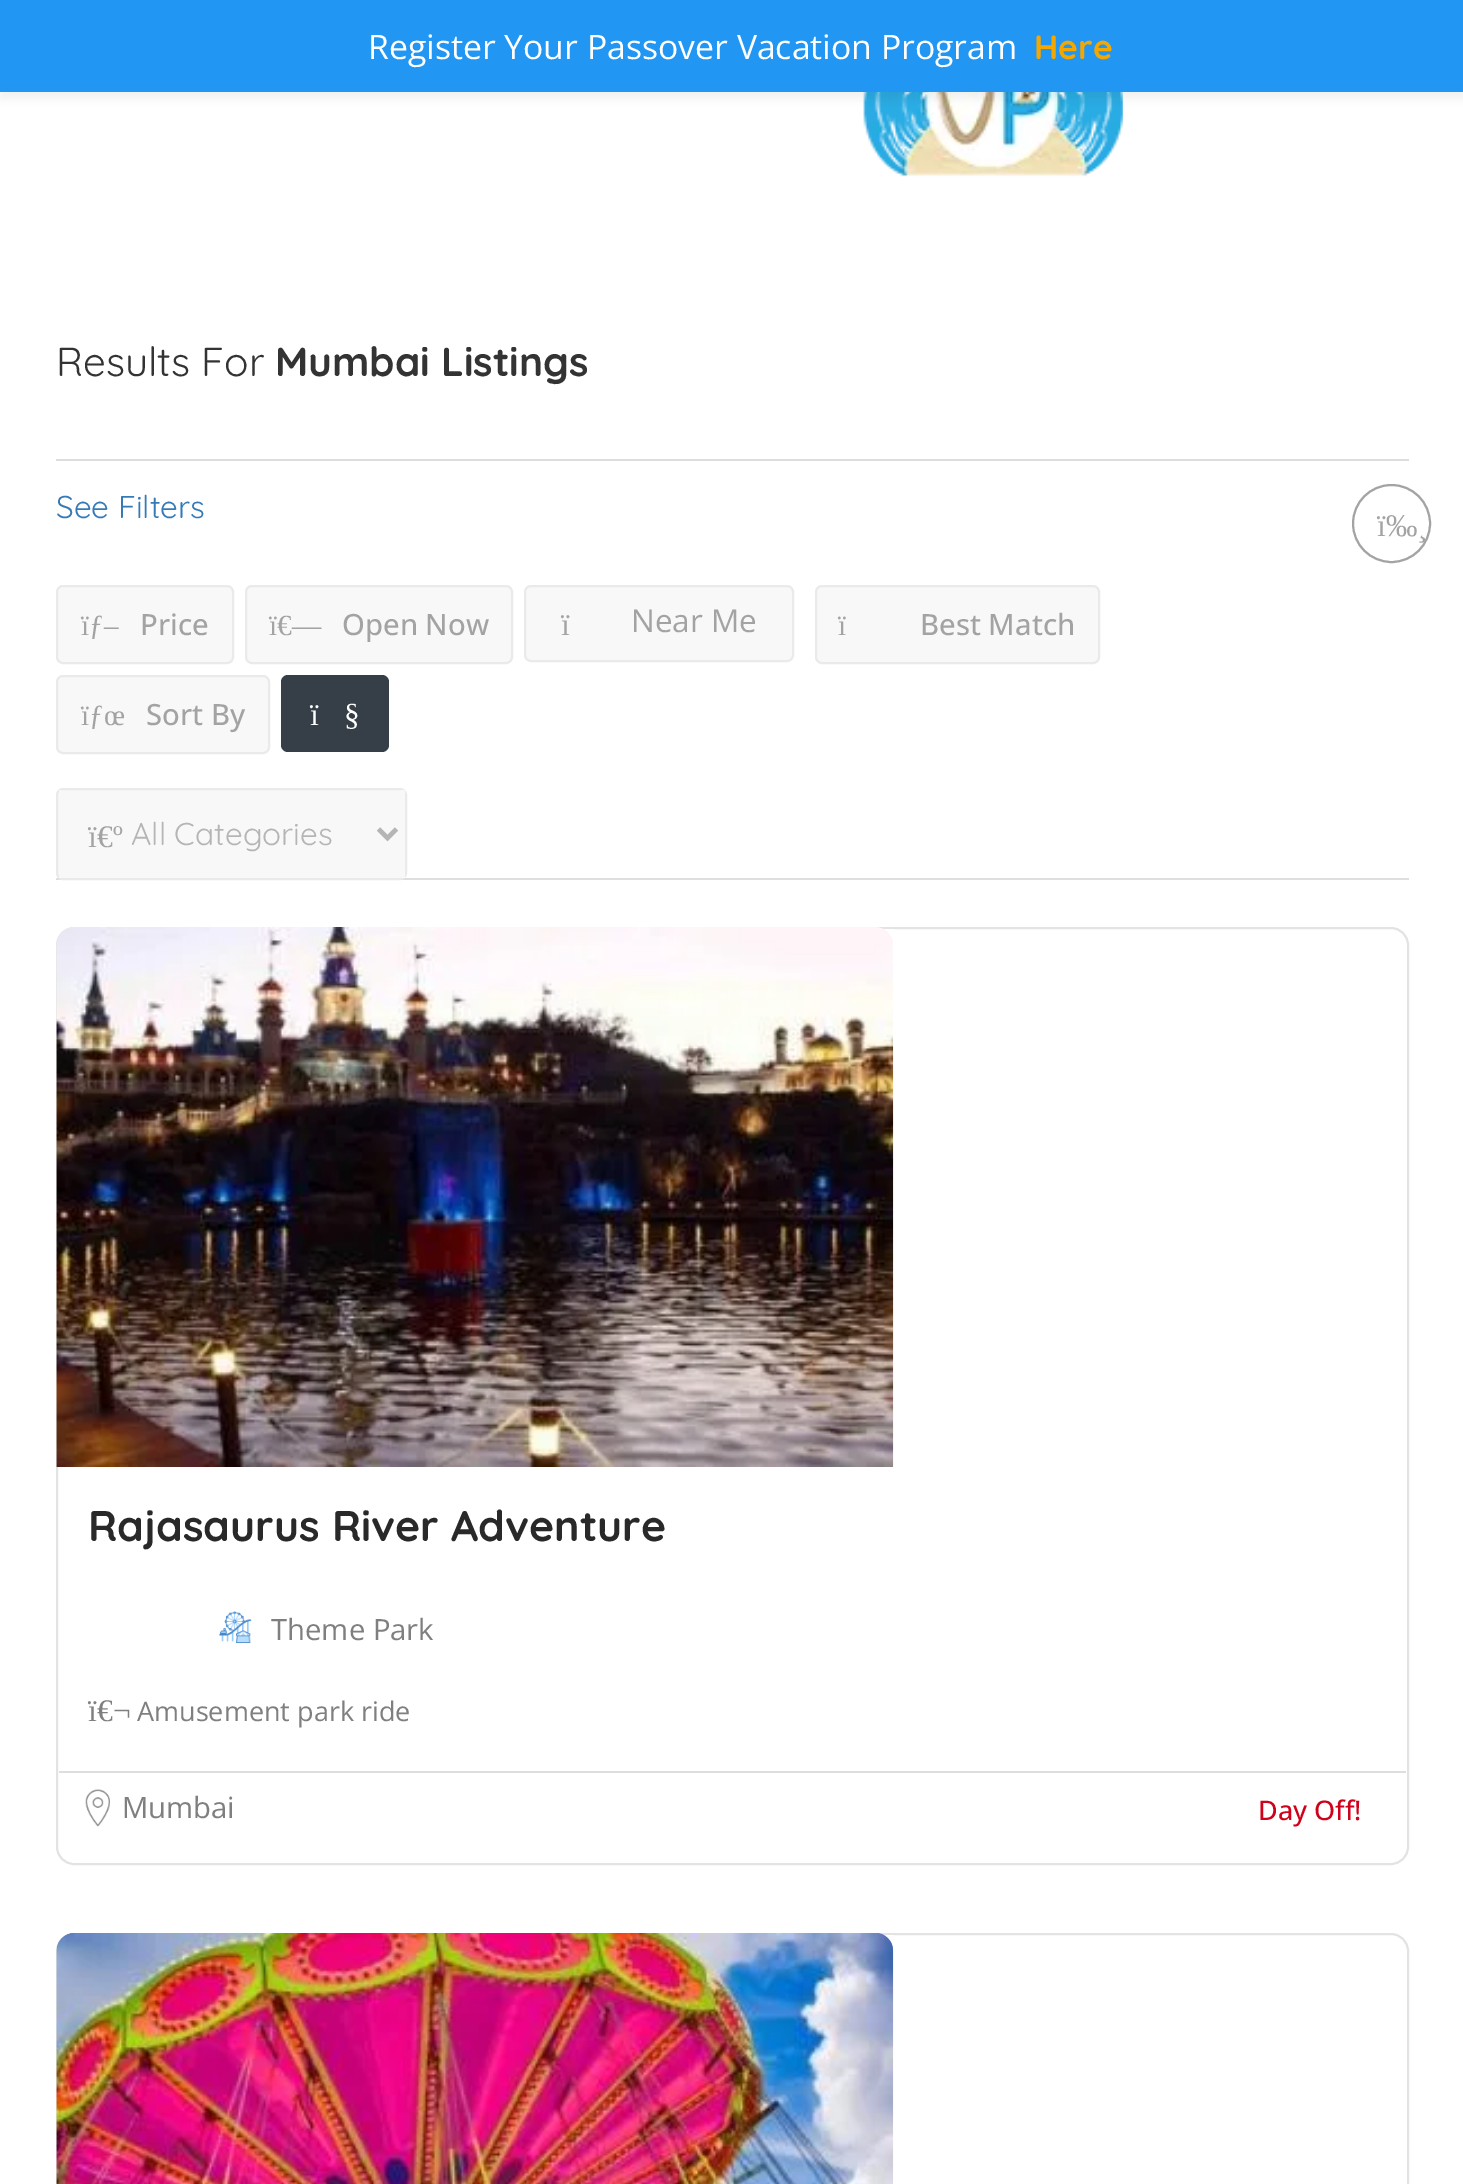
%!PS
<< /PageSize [1463 2184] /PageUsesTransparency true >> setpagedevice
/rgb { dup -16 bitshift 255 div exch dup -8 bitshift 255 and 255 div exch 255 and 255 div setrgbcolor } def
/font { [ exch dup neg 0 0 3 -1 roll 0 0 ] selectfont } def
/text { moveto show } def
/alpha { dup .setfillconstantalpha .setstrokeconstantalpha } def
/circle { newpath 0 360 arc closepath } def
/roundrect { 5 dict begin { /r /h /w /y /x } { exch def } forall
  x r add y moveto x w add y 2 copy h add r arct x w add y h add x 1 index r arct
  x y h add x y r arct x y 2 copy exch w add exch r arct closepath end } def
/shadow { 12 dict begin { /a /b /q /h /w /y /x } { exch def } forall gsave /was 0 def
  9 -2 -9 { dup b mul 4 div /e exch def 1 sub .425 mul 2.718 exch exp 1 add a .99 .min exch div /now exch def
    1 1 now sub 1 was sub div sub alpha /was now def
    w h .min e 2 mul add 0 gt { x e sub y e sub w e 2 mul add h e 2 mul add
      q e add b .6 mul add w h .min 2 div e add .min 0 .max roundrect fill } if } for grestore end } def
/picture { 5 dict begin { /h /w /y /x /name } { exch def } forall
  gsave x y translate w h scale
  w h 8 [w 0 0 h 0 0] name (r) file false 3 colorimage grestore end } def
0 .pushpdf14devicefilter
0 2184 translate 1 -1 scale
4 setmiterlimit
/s1 { /OpenSans-Regular 33.75 font 16#FFFFFF rgb } def
/s2 { /Quicksand-Bold 33.75 font 16#F4A700 rgb } def
/s3 { /Quicksand-Regular 40.5 font 16#333333 rgb } def
/s4 { /Quicksand-Bold 40.5 font 16#333333 rgb } def
/s5 { /Quicksand-Regular 31.5 font 16#337AB7 rgb } def
/s6 { /LiberationSerif-Regular 31.5 font 16#A3A3A3 rgb } def
/s7 { /LiberationSerif-Regular 29.25 font 16#A3A3A3 rgb } def
/s8 { /OpenSans-Medium 29.25 font 16#A3A3A3 rgb } def
/s9 { /OpenSans-Regular 31.5 font 16#A3A3A3 rgb } def
/s10 { /LiberationSerif-Regular 31.5 font 16#FFFFFF rgb } def
/s11 { /Quicksand-Regular 31.5 font 16#B5B5B5 rgb } def
/s12 { /Quicksand-Bold 42.75 font 16#292929 rgb } def
/s13 { /OpenSans-Regular 29.25 font 16#7F7F7F rgb } def
/s14 { /LiberationSerif-Regular 31.5 font 16#7F7F7F rgb } def
/s15 { /OpenSans-Regular 27 font 16#7F7F7F rgb } def
/s16 { /OpenSans-Medium 27 font 16#D0021B rgb } def
16#FFFFFF rgb
0 0 1463 2184 rectfill
(pic1.raw) 863 92 260 85 picture
16#000000 rgb
0 7 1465 92 0 4.5 0.05 shadow
16#2196F3 rgb
0 0 1463 92 rectfill
s1
(Register Your Passover Vacation Program) 368 59 text
s2
(Here) 1034 59 text
s3
(Results For) 56 376 text
s4
(Mumbai Listings) 275 376 text
16#DEDEDE rgb
56 459 1353 2 rectfill
56 878 1353 2 rectfill
s5
(See Filters) 56 518 text
16#A3A3A3 rgb
2 setlinewidth
1391.5 523.5 38.5 circle stroke
s6
(ï‰¸) 1377 536 text
16#F8F8F8 rgb
57 586 176 77 6 roundrect gsave fill grestore
16#EAEAEA rgb
stroke
s7
(ïƒ–) 81 635 text
s8
(Price) 140 635 text
16#F8F8F8 rgb
246 586 266 77 6 roundrect gsave fill grestore
16#EAEAEA rgb
stroke
s7
(ï€—) 269 635 text
s8
(Open Now) 342 635 text
16#F8F8F8 rgb
525 586 268 75 6 roundrect gsave fill grestore
16#EAEAEA rgb
stroke
s6
(ï) 561 635 text
s9
(Near Me) 631 632 text
16#F8F8F8 rgb
816 586 283 77 6 roundrect gsave fill grestore
16#EAEAEA rgb
stroke
s7
(ï) 838 635 text
s8
(Best Match) 920 635 text
16#F8F8F8 rgb
57 676 212 77 6 roundrect gsave fill grestore
16#EAEAEA rgb
stroke
s7
(ïƒœ) 81 725 text
s8
(Sort By) 146 725 text
16#363F48 rgb
281 675 108 77 7 roundrect fill
s10
(ï) 310 725 text
(§) 344 725 text
16#F8F8F8 rgb
57 789 349 90 6 roundrect gsave fill grestore
16#EAEAEA rgb
stroke
16#F8F8F8 rgb
59 790 3 88 rectfill
s6
(ï€º) 88 847 text
16#F8F8F8 rgb
401 790 4 88 rectfill
16#B5B5B5 rgb
4.5 setlinewidth
378.5 829 moveto 387.5 838 lineto 396.5 829 lineto stroke
s11
(All Categories) 131 845 text
16#E3E3E3 rgb
2 setlinewidth
57 928 1351 936 17 roundrect stroke
(pic2.raw) 56 927 838 540 picture
s12
(Rajasaurus River Adventure) 88 1541 text
(pic3.raw) 219 1611 33 32 picture
s13
(Theme Park) 271 1640 text
s14
(ï€¬) 88 1721 text
s15
(Amusement park ride) 137 1721 text
16#DEDEDE rgb
59 1771 1347 2 rectfill
(pic4.raw) 85 1789 25 38 picture
s13
(Mumbai) 122 1818 text
s16
(Day Off!) 1258 1820 text
16#E3E3E3 rgb
57 1934 1351 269 17 roundrect stroke
(pic5.raw) 56 1933 838 251 picture
.poppdf14devicefilter showpage
